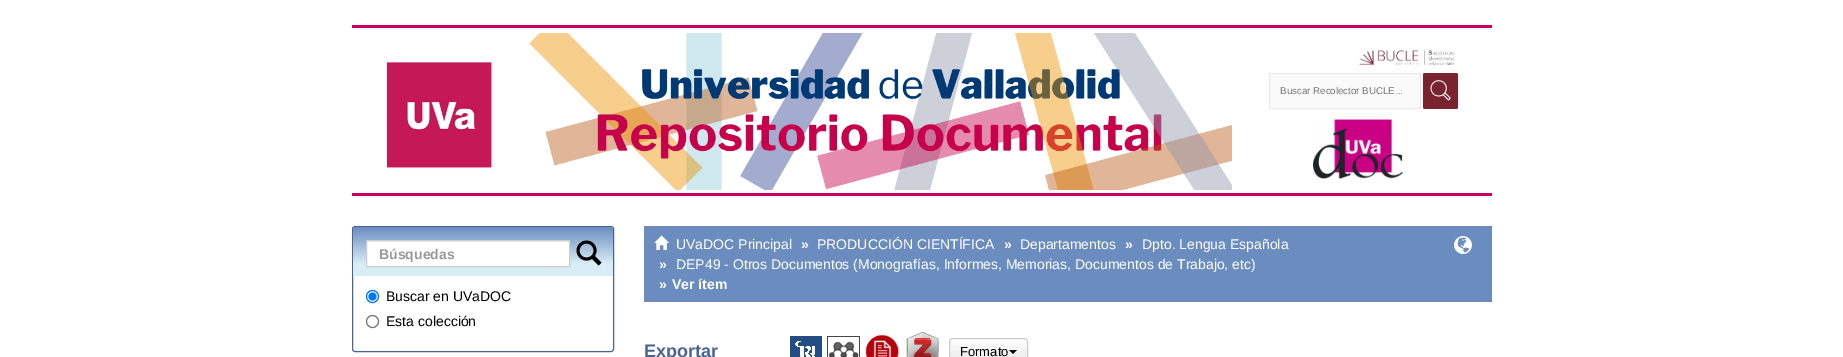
%!PS
<< /PageSize [1843 357] >> setpagedevice
/rgb { dup -16 bitshift 255 div exch dup -8 bitshift 255 and 255 div exch 255 and 255 div setrgbcolor } def
/font { [ exch dup neg 0 0 3 -1 roll 0 0 ] selectfont } def
/text { moveto show } def
/circle { newpath 0 360 arc closepath } def
/roundrect { 5 dict begin { /r /h /w /y /x } { exch def } forall
  x r add y moveto x w add y 2 copy h add r arct x w add y h add x 1 index r arct
  x y h add x y r arct x y 2 copy exch w add exch r arct closepath end } def
/picture { 5 dict begin { /h /w /y /x /name } { exch def } forall
  gsave x y translate w h scale
  w h 8 [w 0 0 h 0 0] name (r) file false 3 colorimage grestore end } def
0 357 translate 1 -1 scale
4 setmiterlimit
/s1 { /LiberationSans-Regular 9.75 font 16#757575 rgb } def
/s2 { /LiberationSans-Bold 14 font 16#999999 rgb } def
/s3 { /LiberationSans-Regular 14 font 16#000000 rgb } def
/s4 { /LiberationSans-Regular 14 font 16#FFFFFF rgb } def
/s5 { /LiberationSans-Bold 14 font 16#FFFFFF rgb } def
/s6 { /LiberationSans-Bold 18 font 16#4B6296 rgb } def
/s7 { /LiberationSans-Regular 13 font 16#000000 rgb } def
16#FFFFFF rgb
0 0 1843 357 rectfill
16#CC0066 rgb
352 25 1140 3 rectfill
352 193 1140 3 rectfill
(pic1.raw) 385 61 110 110 picture
(pic2.raw) 529 33 703 157 picture
(pic3.raw) 1358 50 97 15 picture
16#FAFAFA rgb
1269.5 73.5 151 35 1.5 roundrect gsave fill grestore
16#EAEAEA rgb
stroke
s1
(Buscar Recolector BUCLE...) 1280 94 text
16#79232E rgb
1423 73 35 36 2 roundrect fill
(pic4.raw) 1430 80 21 21 picture
(pic5.raw) 1313 119 90 60 picture
16#4B6296 rgb
352.5 226.5 261 125 2.5 roundrect stroke
gsave 353 227 moveto 613 227 lineto 613 276 lineto 353 276 lineto closepath clip newpath
<< /ShadingType 2 /ColorSpace /DeviceRGB /Coords [483 227 483 276] /Extend [true true] /Function << /FunctionType 3 /Domain [0 1] /Functions [<< /FunctionType 2 /Domain [0 1] /C0 [0.416 0.549 0.745] /C1 [0.851 0.929 0.969] /N 1 >> << /FunctionType 2 /Domain [0 1] /C0 [0.851 0.929 0.969] /C1 [0.851 0.929 0.969] /N 1 >>] /Bounds [0.75] /Encode [0 1 0 1] >> >> shfill grestore
16#FFFFFF rgb
367 242 202 24 rectfill
16#ECECEC rgb
367 241 202 1 rectfill
16#CCCCCC rgb
366.5 240.5 203 26 rectstroke
s2
(Búsquedas) 379 259 text
(pic6.raw) 576 240 26 26 picture
16#0075FF rgb
372.5 296.5 6 circle stroke
372.5 296.5 4 circle fill
s3
(Buscar en UVaDOC) 386 301 text
16#767676 rgb
372.5 321.5 6 circle stroke
s3
(Esta colección) 386 326 text
16#6A8CBE rgb
644 226 848 76 rectfill
(pic7.raw) 654 235 15 15 picture
s4
(UVaDOC Principal) 676 249 text
s5
(») 801 249 text
s4
(PRODUCCIÓN CIENTÍFICA) 817 249 text
s5
(») 1004 249 text
s4
(Departamentos) 1020 249 text
s5
(») 1125 249 text
s4
(Dpto. Lengua Española) 1142 249 text
s5
(») 659 269 text
s4
(DEP49 - Otros Documentos \(Monografías, Informes, Memorias, Documentos de Trabajo, etc\)) 676 269 text
s5
(») 659 289 text
(Ver ítem) 672 289 text
(pic8.raw) 1454 236 18 18 picture
s6
(Exportar) 644 357 text
(pic9.raw) 790 336 32 21 picture
(pic10.raw) 827 336 33 21 picture
(pic11.raw) 865 334 35 23 picture
(pic12.raw) 906 332 33 25 picture
gsave
949 338 79 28 4 roundrect clip newpath
gsave 949 339 moveto 1028 339 lineto 1028 357 lineto 949 357 lineto closepath clip newpath
<< /ShadingType 2 /ColorSpace /DeviceRGB /Coords [989 339 989 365] /Extend [true true] /Function << /FunctionType 2 /Domain [0 1] /C0 [1 1 1] /C1 [0.902 0.902 0.902] /N 1 >> >> shfill grestore
grestore
16#CCCCCC rgb
949.5 338.5 78 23 3.5 roundrect stroke
s7
(Formato) 960 356 text
1009 350 moveto 1017 350 lineto 1013 354 lineto closepath fill
showpage
